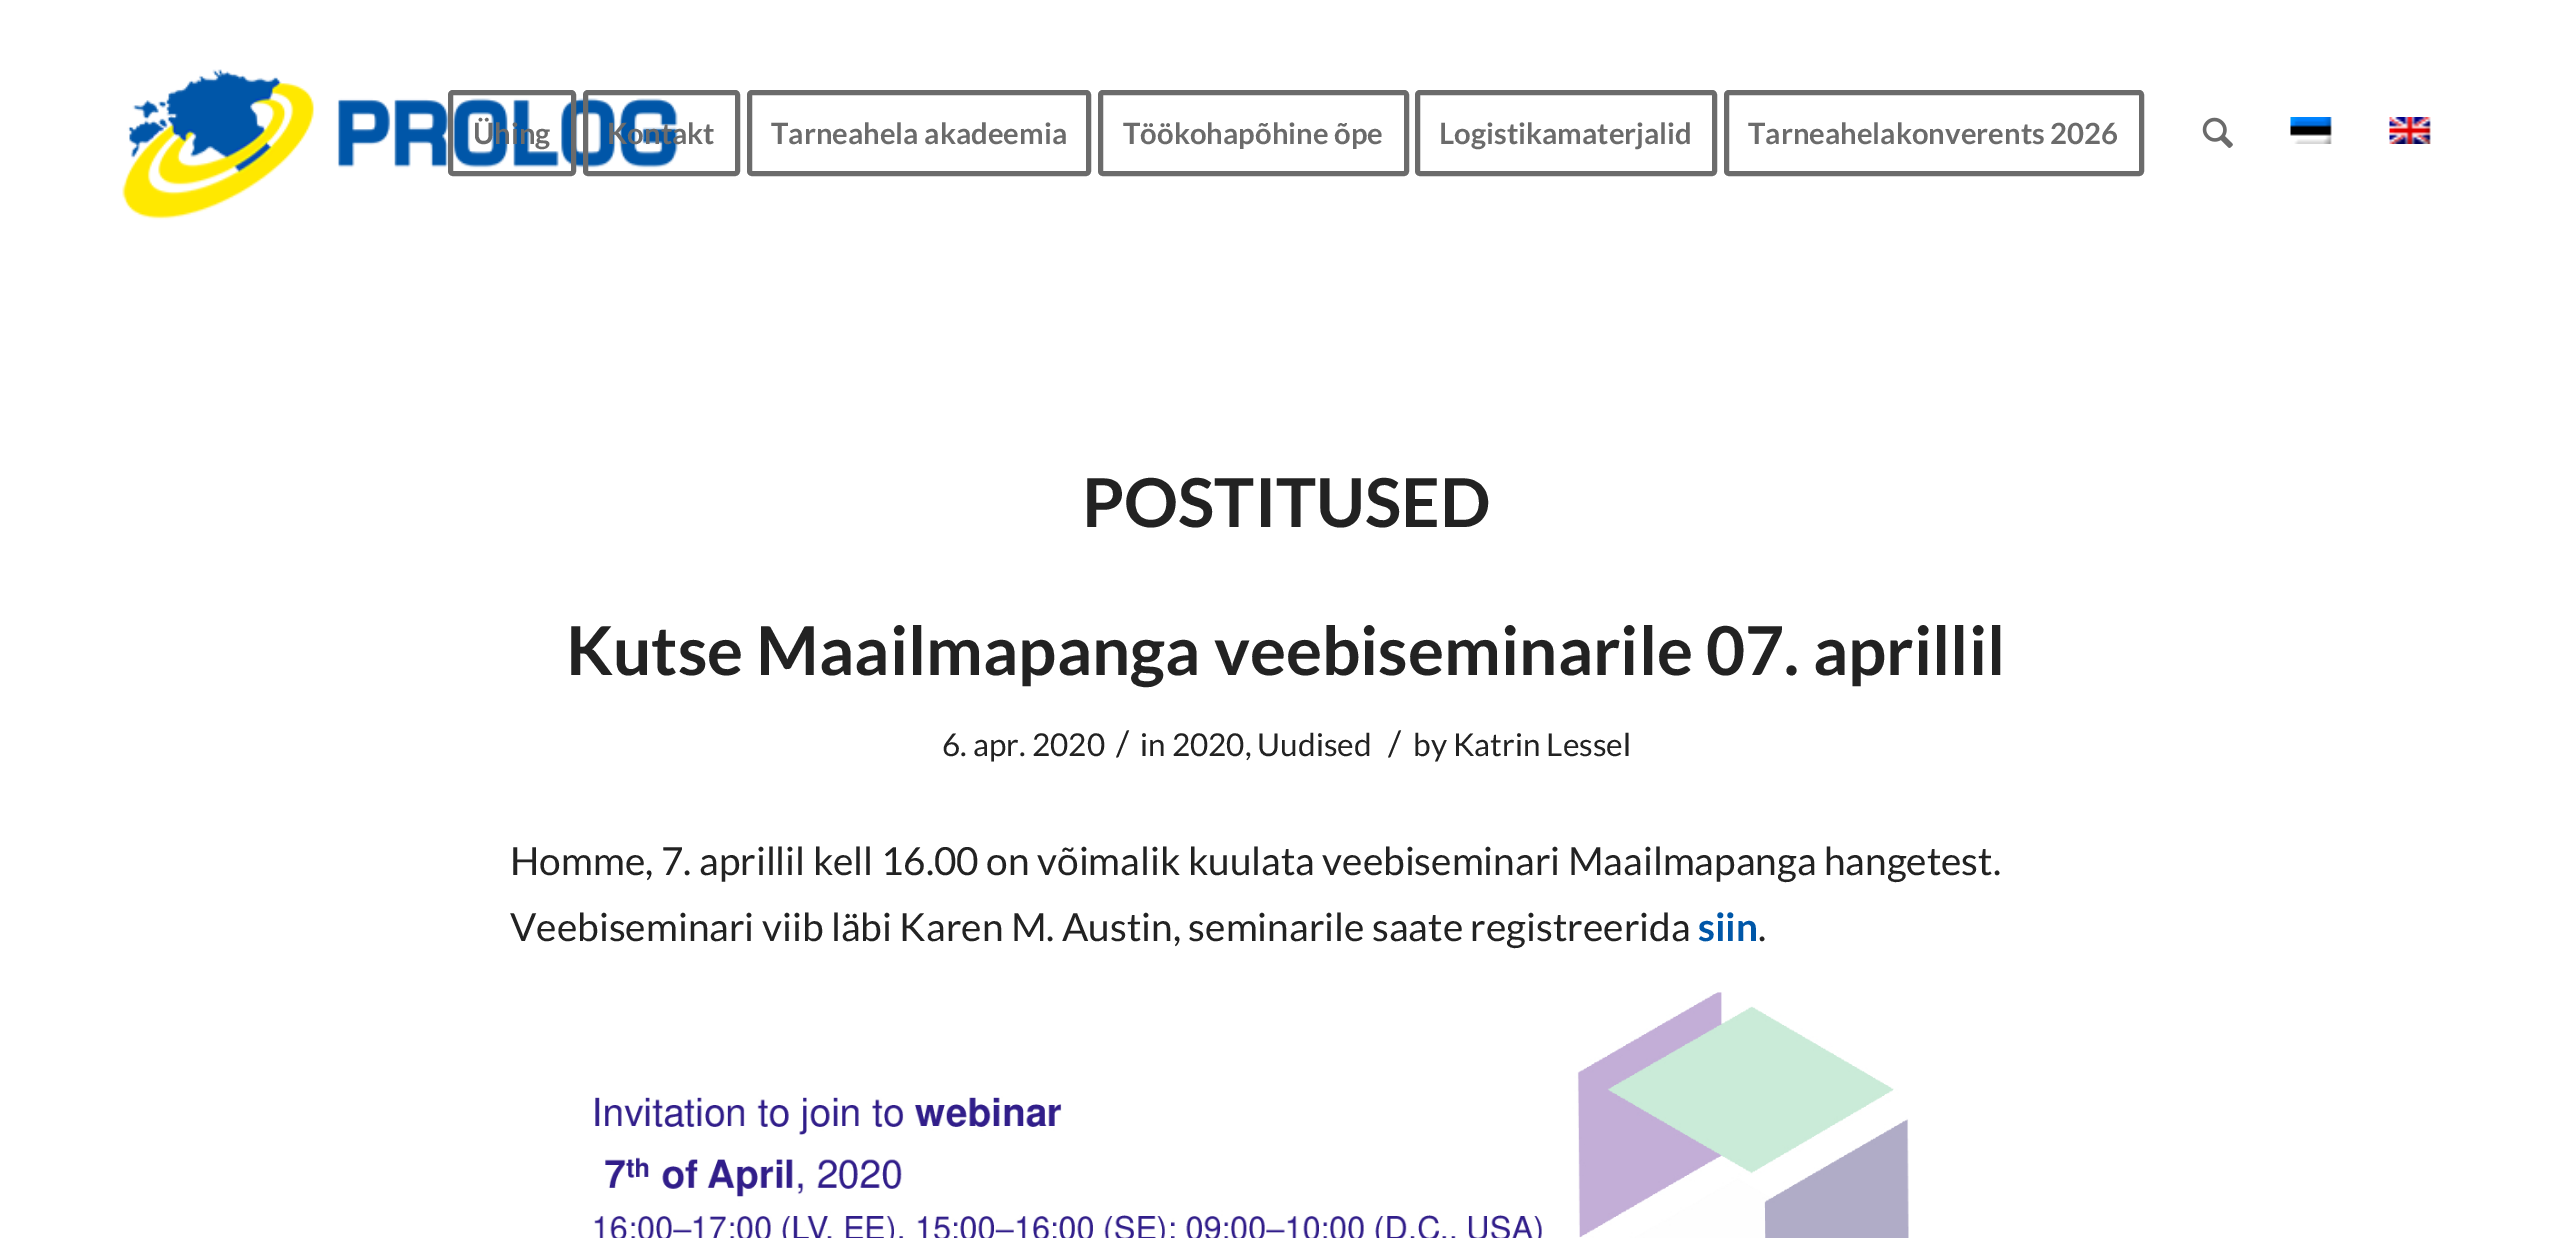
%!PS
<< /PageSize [2570 1238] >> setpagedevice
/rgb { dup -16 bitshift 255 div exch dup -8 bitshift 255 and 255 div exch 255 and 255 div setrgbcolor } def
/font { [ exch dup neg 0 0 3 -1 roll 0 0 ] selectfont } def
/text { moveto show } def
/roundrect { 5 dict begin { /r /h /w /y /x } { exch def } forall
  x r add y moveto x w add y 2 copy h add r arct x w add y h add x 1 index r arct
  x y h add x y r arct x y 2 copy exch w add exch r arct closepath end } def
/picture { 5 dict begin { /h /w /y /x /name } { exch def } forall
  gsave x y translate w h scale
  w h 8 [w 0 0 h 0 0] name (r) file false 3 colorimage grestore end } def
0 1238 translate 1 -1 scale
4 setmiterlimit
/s1 { /Lato-Bold 29.25 font 16#6B6B6B rgb } def
/s2 { /Lato-Bold 67.5 font 16#222222 rgb } def
/s3 { /Lato-Regular 31.5 font 16#222222 rgb } def
/s4 { /Lato-Regular 35 font 16#222222 rgb } def
/s5 { /Lato-Regular 38.8 font 16#222222 rgb } def
/s6 { /Lato-Bold 38.8 font 16#0057A8 rgb } def
16#FFFFFF rgb
0 0 2570 1238 rectfill
(pic1.raw) 122 69 556 151 picture
16#6B6B6B rgb
5 setlinewidth
450.5 92.5 123 81 2.5 roundrect stroke
s1
(Ühing) 473 144 text
585.5 92.5 152 81 2.5 roundrect stroke
(Kontakt) 607 144 text
749.5 92.5 339 81 2.5 roundrect stroke
(Tarneahela akadeemia) 771 144 text
1100.5 92.5 306 81 2.5 roundrect stroke
(Töökohapõhine õpe) 1123 144 text
1417.5 92.5 297 81 2.5 roundrect stroke
(Logistikamaterjalid) 1439 144 text
1726.5 92.5 415 81 2.5 roundrect stroke
(Tarneahelakonverents 2026) 1748 144 text
(pic2.raw) 2202 117 31 31 picture
(pic3.raw) 2290 117 42 27 picture
(pic4.raw) 2389 117 42 27 picture
s2
(POSTITUSED) 1082 527 text
(Kutse Maailmapanga veebiseminarile 07. aprillil) 566 675 text
s3
(6. apr. 2020) 942 756 text
s4
(/) 1116 756 text
s3
(in 2020, Uudised) 1140 756 text
s4
(/) 1388 756 text
s3
(by Katrin Lessel) 1413 756 text
s5
(Homme, 7. aprillil kell 16.00 on võimalik kuulata veebiseminari Maailmapanga hangetest.) 510 875 text
(Veebiseminari viib läbi Karen M. Austin, seminarile saate registreerida) 510 941 text
s6
(siin) 1698 941 text
s5
(.) 1758 941 text
(pic5.raw) 594 992 1315 246 picture
showpage
